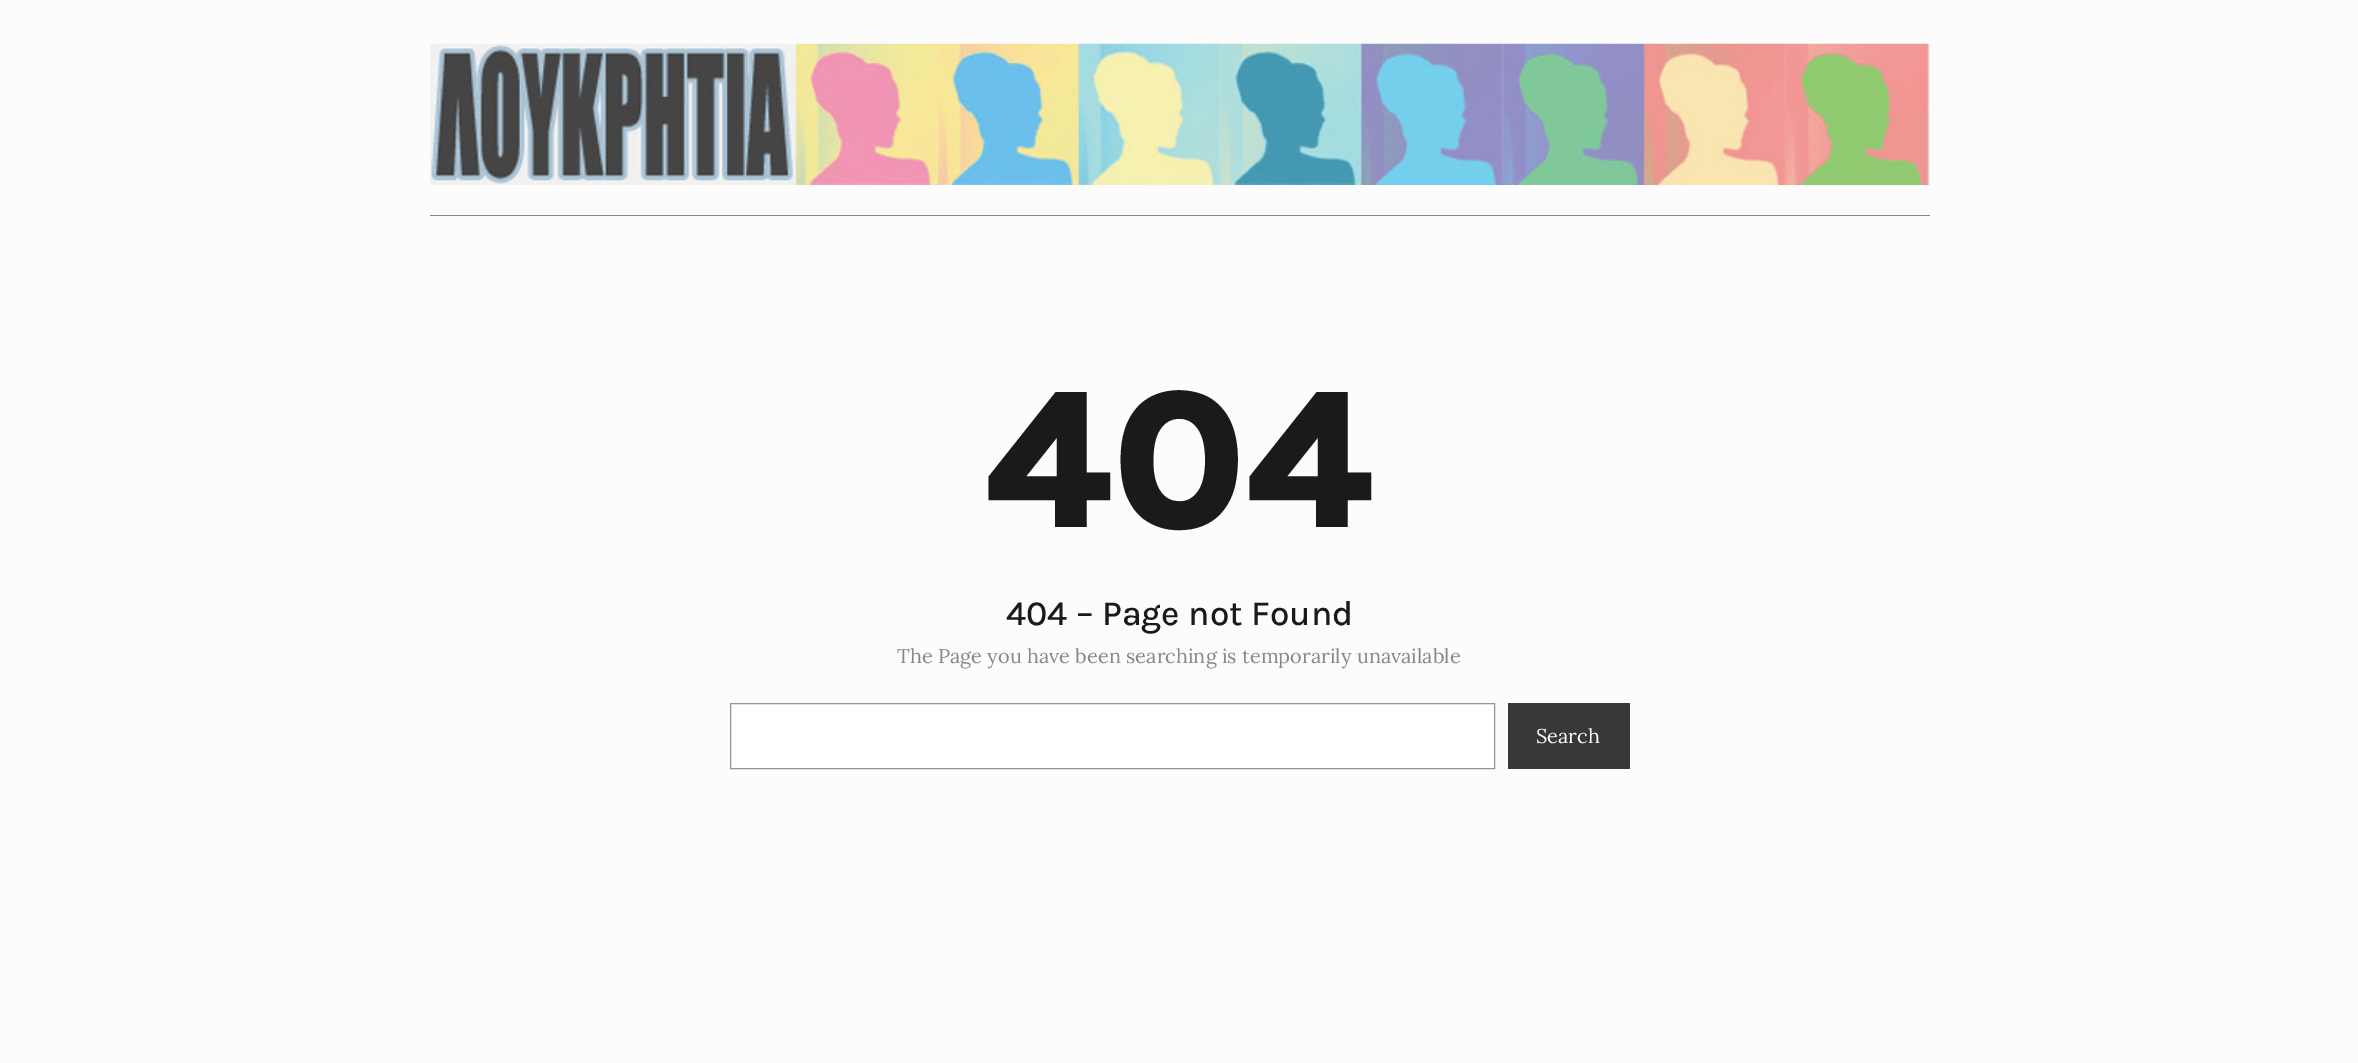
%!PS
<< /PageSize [2358 1063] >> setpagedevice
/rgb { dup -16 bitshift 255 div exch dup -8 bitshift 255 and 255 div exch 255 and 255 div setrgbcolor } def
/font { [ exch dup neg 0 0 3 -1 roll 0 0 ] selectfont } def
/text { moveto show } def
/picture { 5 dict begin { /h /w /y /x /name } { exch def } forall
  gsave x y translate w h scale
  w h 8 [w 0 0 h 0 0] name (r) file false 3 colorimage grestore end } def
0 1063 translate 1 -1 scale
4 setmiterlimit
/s1 { /Karla-ExtraBold 200 font 16#1A1A1A rgb } def
/s2 { /Karla-Medium 35 font 16#1A1A1A rgb } def
/s3 { /Lora-Regular 20 font 16#878787 rgb } def
/s4 { /Lora-Regular 20 font 16#FEFEFE rgb } def
16#FCFCFC rgb
0 0 2358 1063 rectfill
16#878787 rgb
430 215 1500 1 rectfill
(pic1.raw) 430 43 1500 142 picture
s1
(404) 985 527 text
s2
(404 – Page not Found) 1006 625 text
s3
(The Page you have been searching is temporarily unavailable) 897 663 text
16#FFFFFF rgb
730.5 703.5 moveto 1494.5 703.5 lineto 1494.5 768.5 lineto 730.5 768.5 lineto closepath gsave fill grestore
16#949494 rgb
stroke
16#383838 rgb
1508 703 122 66 rectfill
s4
(Search) 1536 743 text
showpage
